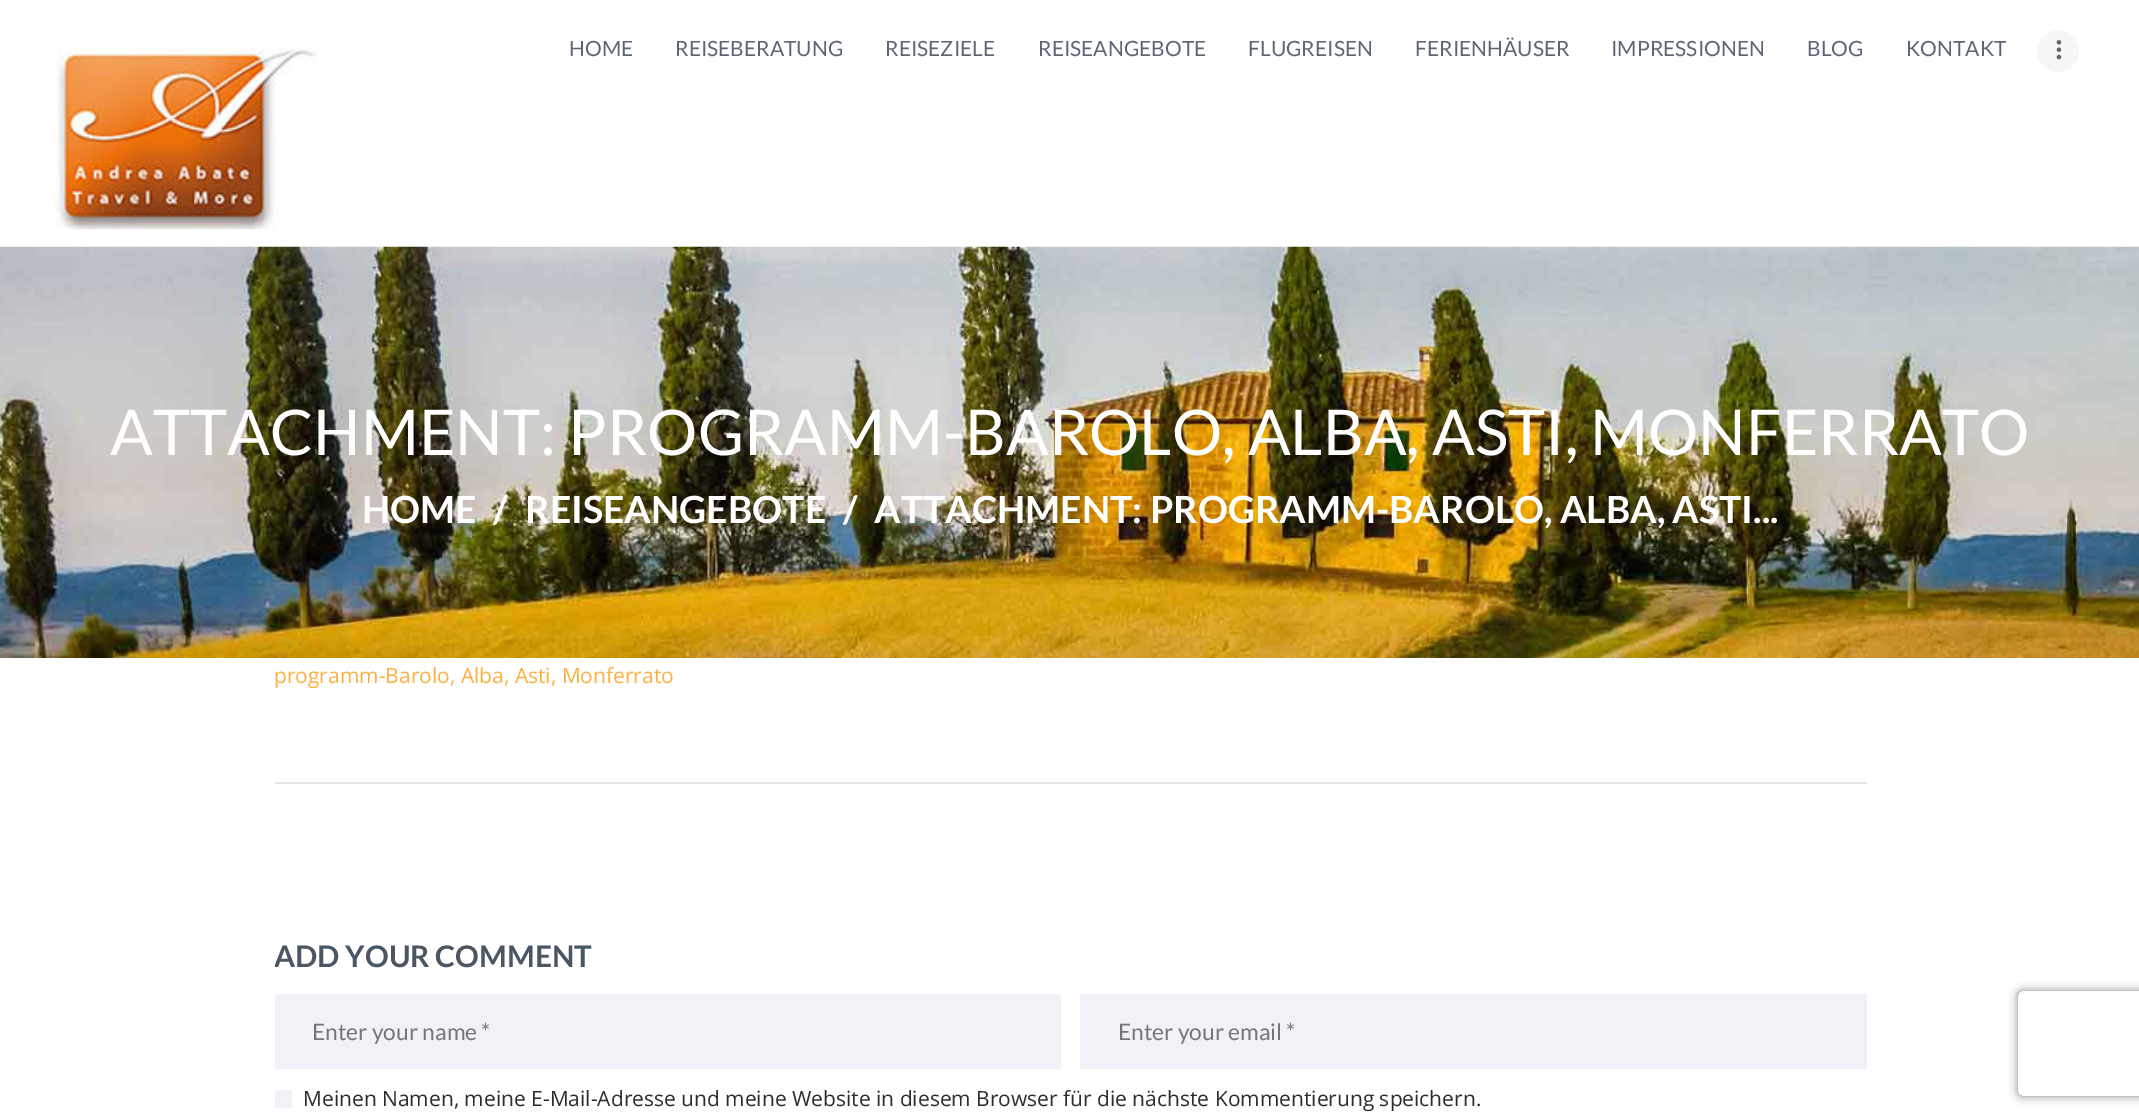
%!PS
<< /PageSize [2139 1120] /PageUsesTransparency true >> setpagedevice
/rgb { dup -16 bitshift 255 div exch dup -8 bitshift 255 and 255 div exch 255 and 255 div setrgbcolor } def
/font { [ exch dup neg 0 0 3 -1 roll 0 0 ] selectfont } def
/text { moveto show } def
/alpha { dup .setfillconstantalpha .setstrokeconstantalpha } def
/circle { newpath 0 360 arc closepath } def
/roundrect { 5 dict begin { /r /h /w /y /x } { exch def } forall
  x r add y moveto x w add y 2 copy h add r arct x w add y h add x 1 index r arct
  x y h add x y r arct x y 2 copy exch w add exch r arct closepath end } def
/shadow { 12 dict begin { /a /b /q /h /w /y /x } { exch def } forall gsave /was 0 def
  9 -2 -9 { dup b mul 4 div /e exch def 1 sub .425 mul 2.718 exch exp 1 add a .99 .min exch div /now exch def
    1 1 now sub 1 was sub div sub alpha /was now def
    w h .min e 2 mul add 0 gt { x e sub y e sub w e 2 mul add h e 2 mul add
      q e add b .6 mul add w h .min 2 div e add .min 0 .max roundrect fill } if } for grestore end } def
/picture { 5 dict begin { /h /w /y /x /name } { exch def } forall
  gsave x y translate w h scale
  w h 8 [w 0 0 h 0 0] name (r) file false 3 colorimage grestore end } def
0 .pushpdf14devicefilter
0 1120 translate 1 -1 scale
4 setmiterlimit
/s1 { /Lato-Regular 21 font 16#5D6774 rgb } def
/s2 { /Lato-Regular 63 font 16#FFFFFF rgb } def
/s3 { /Lato-Bold 37.5 font 16#FFFFFF rgb } def
/s4 { /OpenSans-Regular 21 font 16#FCB040 rgb } def
/s5 { /Lato-Bold 29.75 font 16#4B5664 rgb } def
/s6 { /Lato-Regular 22.75 font 16#757575 rgb } def
/s7 { /OpenSans-Regular 21 font 16#2F2C2C rgb } def
16#FFFFFF rgb
0 0 2139 1120 rectfill
(pic1.raw) 54 47 263 183 picture
s1
(HOME) 569 56 text
(REISEBERATUNG) 675 56 text
(REISEZIELE) 885 56 text
(REISEANGEBOTE) 1038 56 text
(FLUGREISEN) 1248 56 text
(FERIENHÄUSER) 1415 56 text
(IMPRESSIONEN) 1611 56 text
(BLOG) 1807 56 text
(KONTAKT) 1906 56 text
16#F7F7F7 rgb
2058 51 21 circle fill
(pic2.raw) 2056 40 6 20 picture
(pic3.raw) 0 246 2139 412 picture
s2
(ATTACHMENT: PROGRAMM-BAROLO, ALBA, ASTI, MONFERRATO) 110 455 text
s3
(HOME) 362 523 text
(/) 493 523 text
(REISEANGEBOTE) 525 523 text
(/) 843 523 text
(ATTACHMENT: PROGRAMM-BAROLO, ALBA, ASTI...) 874 523 text
s4
(programm-Barolo, Alba, Asti, Monferrato) 274 683 text
16#E5E5E5 rgb
275 782 1592 2 rectfill
gsave
275 784 1592 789 rectclip
s5
(ADD YOUR COMMENT) 274 967 text
grestore
16#F0F2F8 rgb
275 994 786 75 rectfill
s6
(Enter your name *) 312 1040 text
16#F0F2F8 rgb
1080 994 787 75 rectfill
s6
(Enter your email *) 1118 1040 text
16#F0F2F8 rgb
275 1090 17 18 rectfill
s7
(Meinen Namen, meine E-Mail-Adresse und meine Website in diesem Browser für die nächste Kommentierung speichern.) 303 1106 text
gsave
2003 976 moveto 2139 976 lineto 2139 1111 lineto 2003 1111 lineto closepath 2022 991 moveto 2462 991 lineto 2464 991 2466 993 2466 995 curveto 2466 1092 lineto 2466 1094 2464 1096 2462 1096 curveto 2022 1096 lineto 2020 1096 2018 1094 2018 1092 curveto 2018 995 lineto 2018 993 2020 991 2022 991 curveto closepath eoclip newpath
16#808080 rgb
2018 991 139 105 4 4.5 1 shadow
grestore
.poppdf14devicefilter showpage
